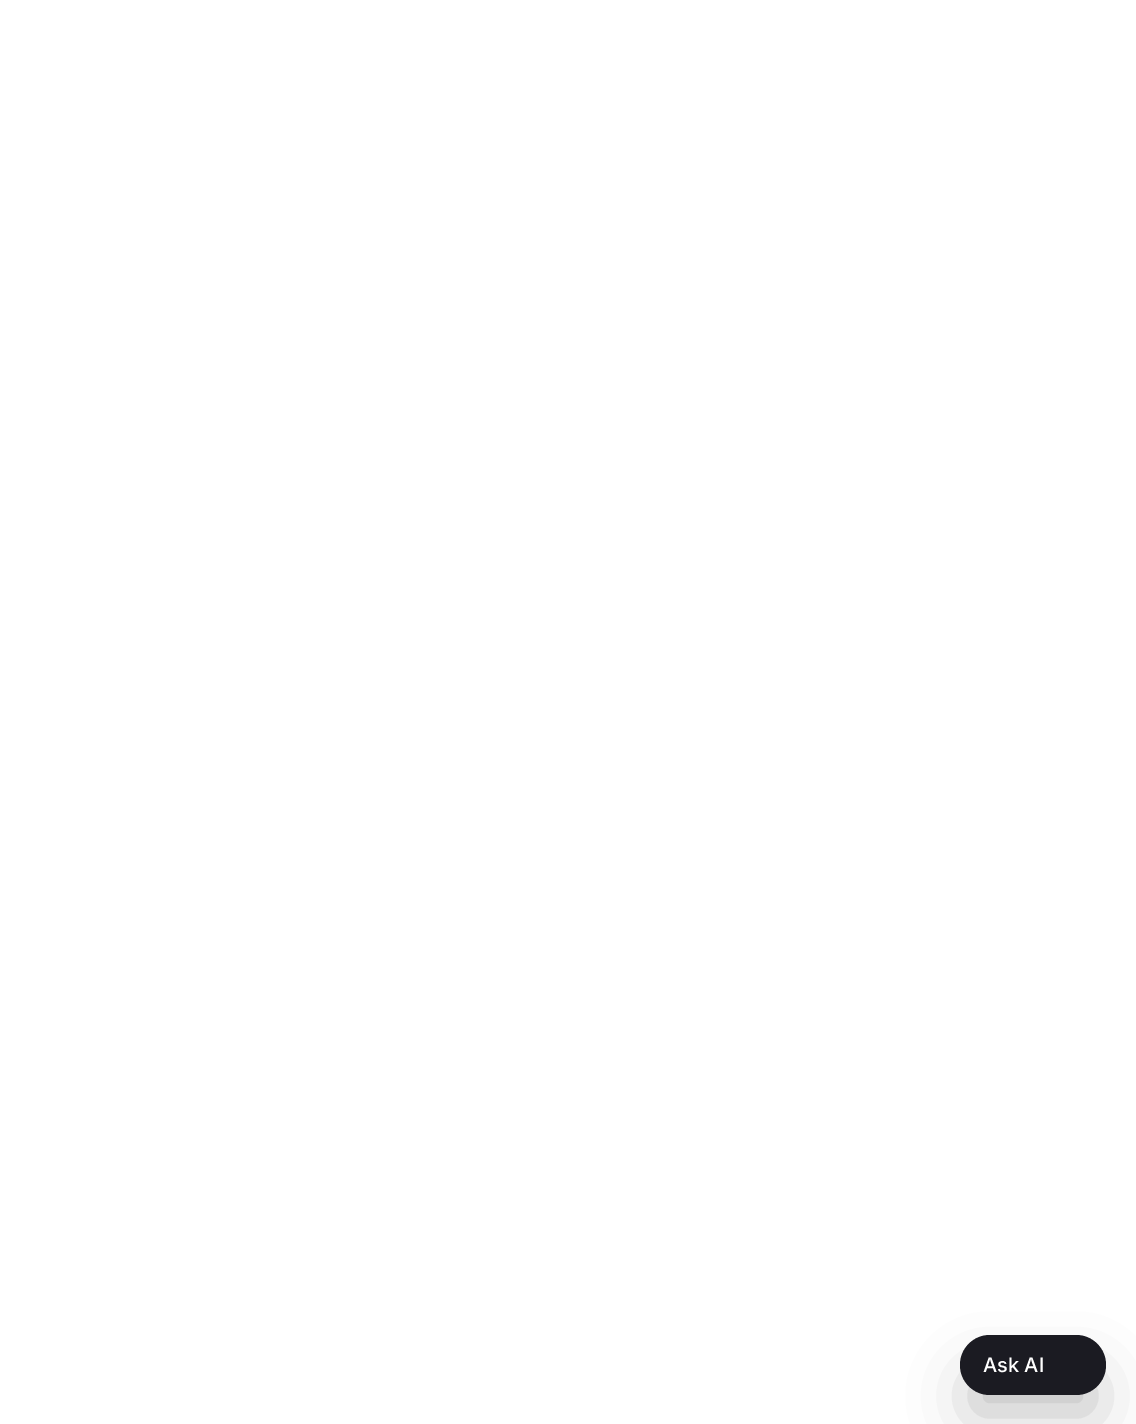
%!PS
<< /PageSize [1136 1424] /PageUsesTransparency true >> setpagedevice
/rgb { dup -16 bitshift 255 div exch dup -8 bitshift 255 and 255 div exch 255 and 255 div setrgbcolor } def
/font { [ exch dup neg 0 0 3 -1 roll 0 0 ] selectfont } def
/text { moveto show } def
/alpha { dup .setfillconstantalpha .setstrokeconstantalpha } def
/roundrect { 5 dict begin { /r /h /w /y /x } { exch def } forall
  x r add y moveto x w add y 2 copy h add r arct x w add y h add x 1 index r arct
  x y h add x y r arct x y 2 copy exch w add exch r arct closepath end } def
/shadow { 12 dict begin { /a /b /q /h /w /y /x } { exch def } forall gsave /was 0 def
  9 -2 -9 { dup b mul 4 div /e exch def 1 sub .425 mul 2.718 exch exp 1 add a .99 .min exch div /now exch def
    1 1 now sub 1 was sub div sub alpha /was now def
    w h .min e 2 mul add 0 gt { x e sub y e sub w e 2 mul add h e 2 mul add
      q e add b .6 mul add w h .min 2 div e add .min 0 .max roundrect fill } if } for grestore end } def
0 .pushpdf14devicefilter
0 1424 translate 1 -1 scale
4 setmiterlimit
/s1 { /Inter-Medium 20 font 16#FFFFFF rgb } def
16#FFFFFF rgb
0 0 1136 1424 rectfill
16#000000 rgb
975 1381 116 30 15 31 0.25 shadow
16#1B1B22 rgb
960 1335 146 60 30 roundrect fill
s1
(Ask AI) 983 1372 text
.poppdf14devicefilter showpage
